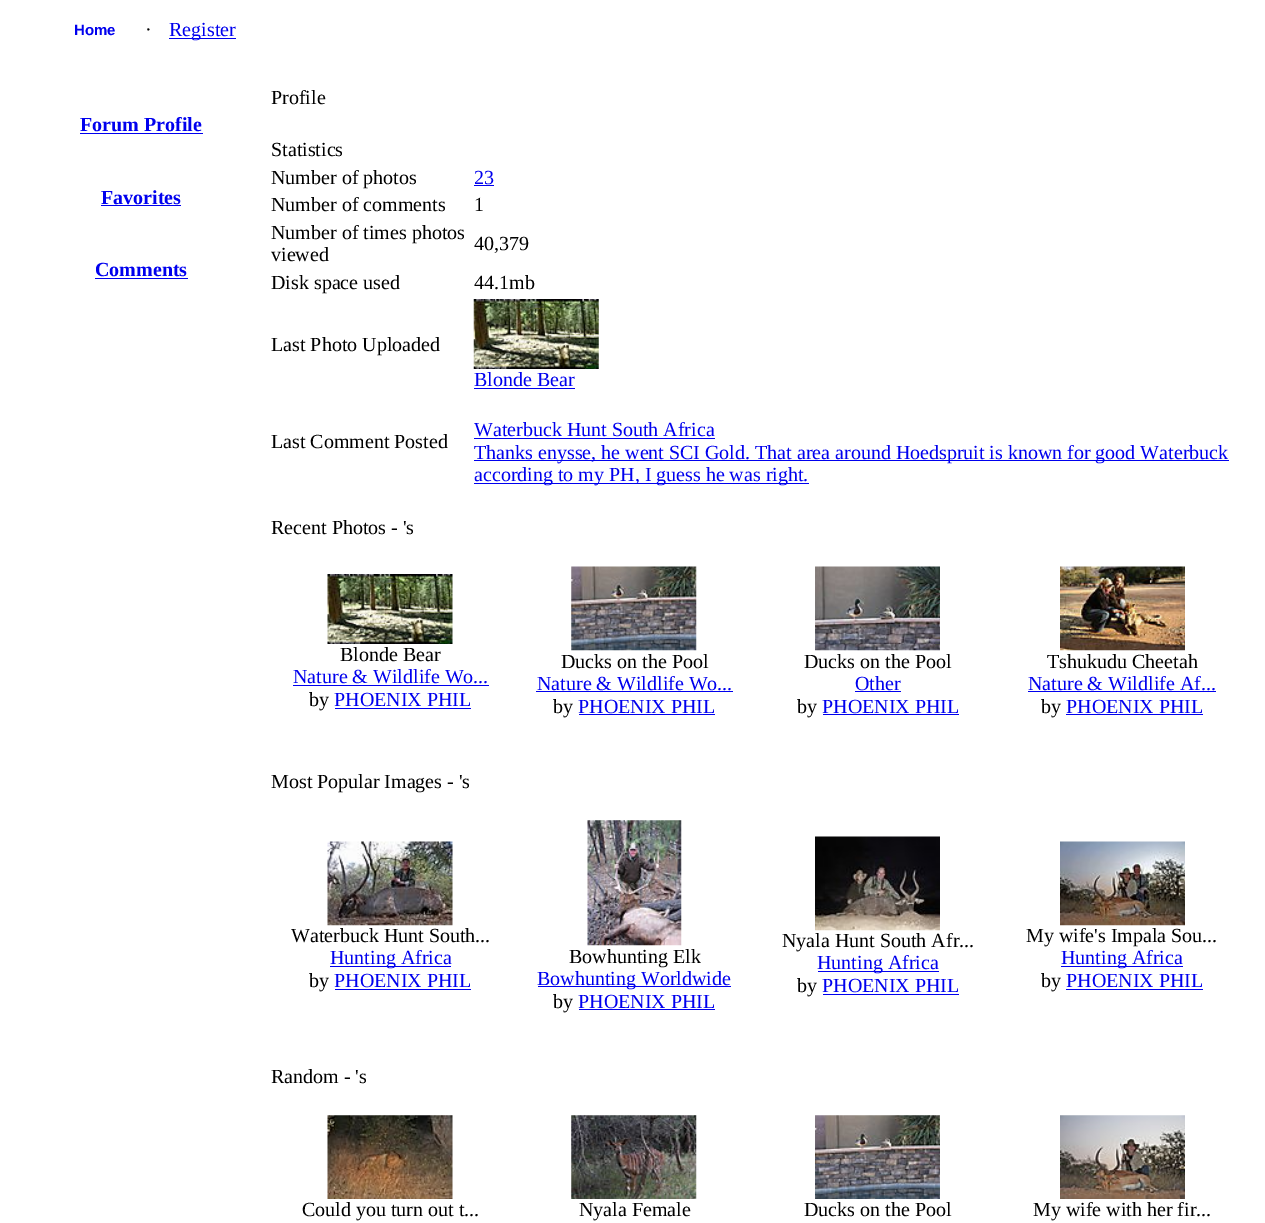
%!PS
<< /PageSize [1265 1223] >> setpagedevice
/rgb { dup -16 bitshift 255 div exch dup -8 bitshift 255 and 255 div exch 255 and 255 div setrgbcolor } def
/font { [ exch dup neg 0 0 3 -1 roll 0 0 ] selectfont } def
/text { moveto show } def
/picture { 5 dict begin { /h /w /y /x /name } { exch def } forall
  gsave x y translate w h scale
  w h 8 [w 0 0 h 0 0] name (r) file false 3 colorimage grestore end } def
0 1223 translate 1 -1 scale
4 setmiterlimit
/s1 { /LiberationSans-Bold 15 font 16#0000EE rgb } def
/s2 { /LiberationSerif-Regular 20 font 16#000000 rgb } def
/s3 { /LiberationSerif-Regular 20 font 16#0000EE rgb } def
/s4 { /LiberationSerif-Bold 20 font 16#0000EE rgb } def
16#FFFFFF rgb
0 0 1265 1223 rectfill
s1
(Home) 74 35 text
s2
(·) 145 36 text
16#0000EE rgb
169 38 67 1 rectfill
(Register) 169 36 text
s4
(Forum Profile) 80 131 text
80 133 123 1 rectfill
(Favorites) 101 204 text
101 205 80 1 rectfill
(Comments) 95 276 text
95 278 93 1 rectfill
s2
(Profile) 271 104 text
(Statistics) 271 156 text
(Number of photos) 271 184 text
s3
(23) 474 184 text
474 185 20 1 rectfill
s2
(Number of comments) 271 211 text
(1) 474 211 text
(Number of times photos) 271 239 text
(viewed) 271 261 text
(40,379) 474 250 text
(Disk space used) 271 289 text
(44.1mb) 474 289 text
(Last Photo Uploaded) 271 351 text
(pic1.raw) 473 299 126 70 picture
s3
(Blonde Bear) 474 386 text
474 388 101 1 rectfill
s2
(Last Comment Posted) 271 448 text
s3
(Waterbuck Hunt South Africa) 474 436 text
474 438 241 1 rectfill
474 460 755 1 rectfill
(Thanks enysse, he went SCI Gold. That area around Hoedspruit is known for good Waterbuck) 474 459 text
474 483 335 1 rectfill
(according to my PH, I guess he was right.) 474 481 text
s2
(Recent Photos - 's) 271 534 text
(pic2.raw) 327 574 126 70 picture
(Blonde Bear) 340 661 text
s3
(Nature & Wildlife Wo...) 293 683 text
293 685 196 1 rectfill
s2
(by) 309 706 text
s3
(PHOENIX PHIL) 334 706 text
335 708 136 1 rectfill
(pic3.raw) 571 566 126 85 picture
s2
(Ducks on the Pool) 561 668 text
s3
(Nature & Wildlife Wo...) 537 690 text
536 691 197 1 rectfill
s2
(by) 553 713 text
s3
(PHOENIX PHIL) 578 713 text
579 714 136 1 rectfill
(pic4.raw) 815 566 125 85 picture
s2
(Ducks on the Pool) 804 668 text
s3
(Other) 855 690 text
855 691 46 1 rectfill
s2
(by) 797 713 text
s3
(PHOENIX PHIL) 822 713 text
823 714 136 1 rectfill
(pic5.raw) 1060 566 125 85 picture
s2
(Tshukudu Cheetah) 1047 668 text
s3
(Nature & Wildlife Af...) 1028 690 text
1028 691 188 1 rectfill
s2
(by) 1041 713 text
s3
(PHOENIX PHIL) 1066 713 text
1066 714 137 1 rectfill
s2
(Most Popular Images - 's) 271 788 text
(pic6.raw) 327 841 126 85 picture
(Waterbuck Hunt South...) 291 942 text
16#0000EE rgb
330 966 121 1 rectfill
(Hunting Africa) 330 964 text
s2
(by) 309 987 text
s3
(PHOENIX PHIL) 334 987 text
335 989 136 1 rectfill
(pic7.raw) 587 820 95 126 picture
s2
(Bowhunting Elk) 569 963 text
16#0000EE rgb
538 986 193 1 rectfill
(Bowhunting Worldwide) 537 985 text
s2
(by) 553 1008 text
s3
(PHOENIX PHIL) 578 1008 text
579 1009 136 1 rectfill
(pic8.raw) 815 836 125 95 picture
s2
(Nyala Hunt South Afr...) 782 947 text
16#0000EE rgb
818 971 121 1 rectfill
(Hunting Africa) 817 969 text
s2
(by) 797 992 text
s3
(PHOENIX PHIL) 822 992 text
823 994 136 1 rectfill
(pic9.raw) 1060 841 125 85 picture
s2
(My wife's Impala Sou...) 1026 942 text
16#0000EE rgb
1061 966 122 1 rectfill
(Hunting Africa) 1061 964 text
s2
(by) 1041 987 text
s3
(PHOENIX PHIL) 1066 987 text
1066 989 137 1 rectfill
s2
(Random - 's) 271 1083 text
(pic10.raw) 327 1115 126 84 picture
(Could you turn out t...) 302 1216 text
(pic11.raw) 571 1115 126 84 picture
(Nyala Female) 579 1216 text
(pic12.raw) 815 1115 125 84 picture
(Ducks on the Pool) 804 1216 text
(pic13.raw) 1060 1115 125 84 picture
(My wife with her fir...) 1033 1216 text
showpage
